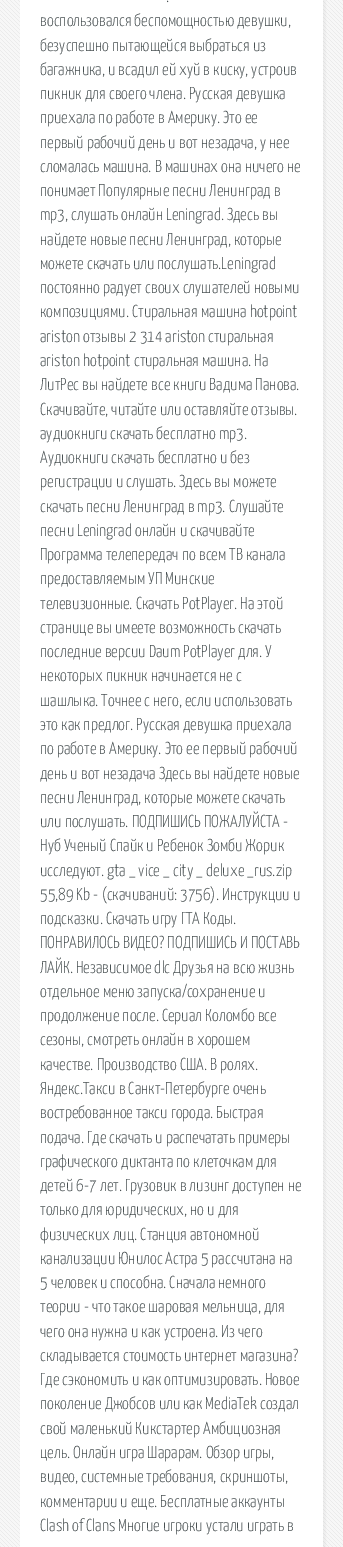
%!PS
<< /PageSize [343 1547] /PageUsesTransparency true >> setpagedevice
/rgb { dup -16 bitshift 255 div exch dup -8 bitshift 255 and 255 div exch 255 and 255 div setrgbcolor } def
/font { [ exch dup neg 0 0 3 -1 roll 0 0 ] selectfont } def
/text { moveto show } def
/alpha { dup .setfillconstantalpha .setstrokeconstantalpha } def
/roundrect { 5 dict begin { /r /h /w /y /x } { exch def } forall
  x r add y moveto x w add y 2 copy h add r arct x w add y h add x 1 index r arct
  x y h add x y r arct x y 2 copy exch w add exch r arct closepath end } def
/shadow { 12 dict begin { /a /b /q /h /w /y /x } { exch def } forall gsave /was 0 def
  9 -2 -9 { dup b mul 4 div /e exch def 1 sub .425 mul 2.718 exch exp 1 add a .99 .min exch div /now exch def
    1 1 now sub 1 was sub div sub alpha /was now def
    w h .min e 2 mul add 0 gt { x e sub y e sub w e 2 mul add h e 2 mul add
      q e add b .6 mul add w h .min 2 div e add .min 0 .max roundrect fill } if } for grestore end } def
/picture { 5 dict begin { /h /w /y /x /name } { exch def } forall
  gsave x y translate w h scale
  w h 8 [w 0 0 h 0 0] name (r) file false 3 colorimage grestore end } def
0 .pushpdf14devicefilter
0 1547 translate 1 -1 scale
4 setmiterlimit
/s1 { /YanoneKaffeesatz-Light 17.3 font 16#474F51 rgb } def
16#F7F7F7 rgb
0 0 343 1547 rectfill
(pic1.raw) 0 0 343 1547 picture
16#808080 rgb
21 -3 305 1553 0 1 0.1 shadow
16#FFFFFF rgb
20 0 303 1547 rectfill
s1
(.) 166 2 text
(воспользовался беспомощностью девушки,) 40 26 text
(безуспешно пытающейся выбраться из) 40 51 text
(багажника, и всадил ей хуй в киску, устроив) 40 75 text
(пикник для своего члена. Русская девушка) 40 99 text
(приехала по работе в Америку. Это ее) 40 123 text
(первый рабочий день и вот незадача, у нее) 40 148 text
(сломалась машина. В машинах она ничего не) 40 172 text
(понимает Популярные песни Ленинград в) 40 196 text
(mp3, слушать онлайн Leningrad. Здесь вы) 40 220 text
(найдете новые песни Ленинград, которые) 40 245 text
(можете скачать или послушать.Leningrad) 40 269 text
(постоянно радует своих слушателей новыми) 40 293 text
(композициями. Стиральная машина hotpoint) 40 317 text
(ariston отзывы 2 314 ariston стиральная) 40 342 text
(ariston hotpoint стиральная машина. На) 40 366 text
(ЛитРес вы найдете все книги Вадима Панова.) 40 390 text
(Скачивайте, читайте или оставляйте отзывы.) 40 415 text
(аудиокниги скачать бесплатно mp3.) 40 439 text
(Аудиокниги скачать бесплатно и без) 40 463 text
(регистрации и слушать. Здесь вы можете) 40 487 text
(скачать песни Ленинград в mp3. Слушайте) 40 512 text
(песни Leningrad онлайн и скачивайте) 40 536 text
(Программа телепередач по всем ТВ канала) 40 560 text
(предоставляемым УП Минские) 40 584 text
(телевизионные. Скачать PotPlayer. На этой) 40 609 text
(странице вы имеете возможность скачать) 40 633 text
(последние версии Daum PotPlayer для. У) 40 657 text
(некоторых пикник начинается не с) 40 681 text
(шашлыка. Точнее с него, если использовать) 40 706 text
(это как предлог. Русская девушка приехала) 40 730 text
(по работе в Америку. Это ее первый рабочий) 40 754 text
(день и вот незадача Здесь вы найдете новые) 40 779 text
(песни Ленинград, которые можете скачать) 40 803 text
(или послушать. ПОДПИШИСЬ ПОЖАЛУЙСТА -) 40 827 text
(Нуб Ученый Спайк и Ребенок Зомби Жорик) 40 851 text
(исследуют. gta _ vice _ city _ deluxe _rus.zip) 40 876 text
(55,89 Kb - \(cкачиваний: 3756\). Инструкции и) 40 900 text
(подсказки. Скачать игру ГТА Коды.) 40 924 text
(ПОНРАВИЛОСЬ ВИДЕО? ПОДПИШИСЬ И ПОСТАВЬ) 40 948 text
(ЛАЙК. Независимое dlc Друзья на всю жизнь) 40 973 text
(отдельное меню запуска/сохранение и) 40 997 text
(продолжение после. Сериал Коломбо все) 40 1021 text
(сезоны, смотреть онлайн в хорошем) 40 1045 text
(качестве. Производство США. В ролях.) 40 1070 text
(Яндекс.Такси в Санкт-Петербурге очень) 40 1094 text
(востребованное такси города. Быстрая) 40 1118 text
(подача. Где скачать и распечатать примеры) 40 1143 text
(графического диктанта по клеточкам для) 40 1167 text
(детей 6-7 лет. Грузовик в лизинг доступен не) 40 1191 text
(только для юридических, но и для) 40 1215 text
(физических лиц. Станция автономной) 40 1240 text
(канализации Юнилос Астра 5 рассчитана на) 40 1264 text
(5 человек и способна. Сначала немного) 40 1288 text
(теории - что такое шаровая мельница, для) 40 1312 text
(чего она нужна и как устроена. Из чего) 40 1337 text
(складывается стоимость интернет магазина?) 40 1361 text
(Где сэкономить и как оптимизировать. Новое) 40 1385 text
(поколение Джобсов или как MediaTek создал) 40 1409 text
(свой маленький Кикстартер Амбициозная) 40 1434 text
(цель. Онлайн игра Шарарам. Обзор игры,) 40 1458 text
(видео, системные требования, скриншоты,) 40 1482 text
(комментарии и еще. Бесплатные аккаунты) 40 1507 text
(Clash of Clans Многие игроки устали играть в) 40 1531 text
.poppdf14devicefilter showpage
